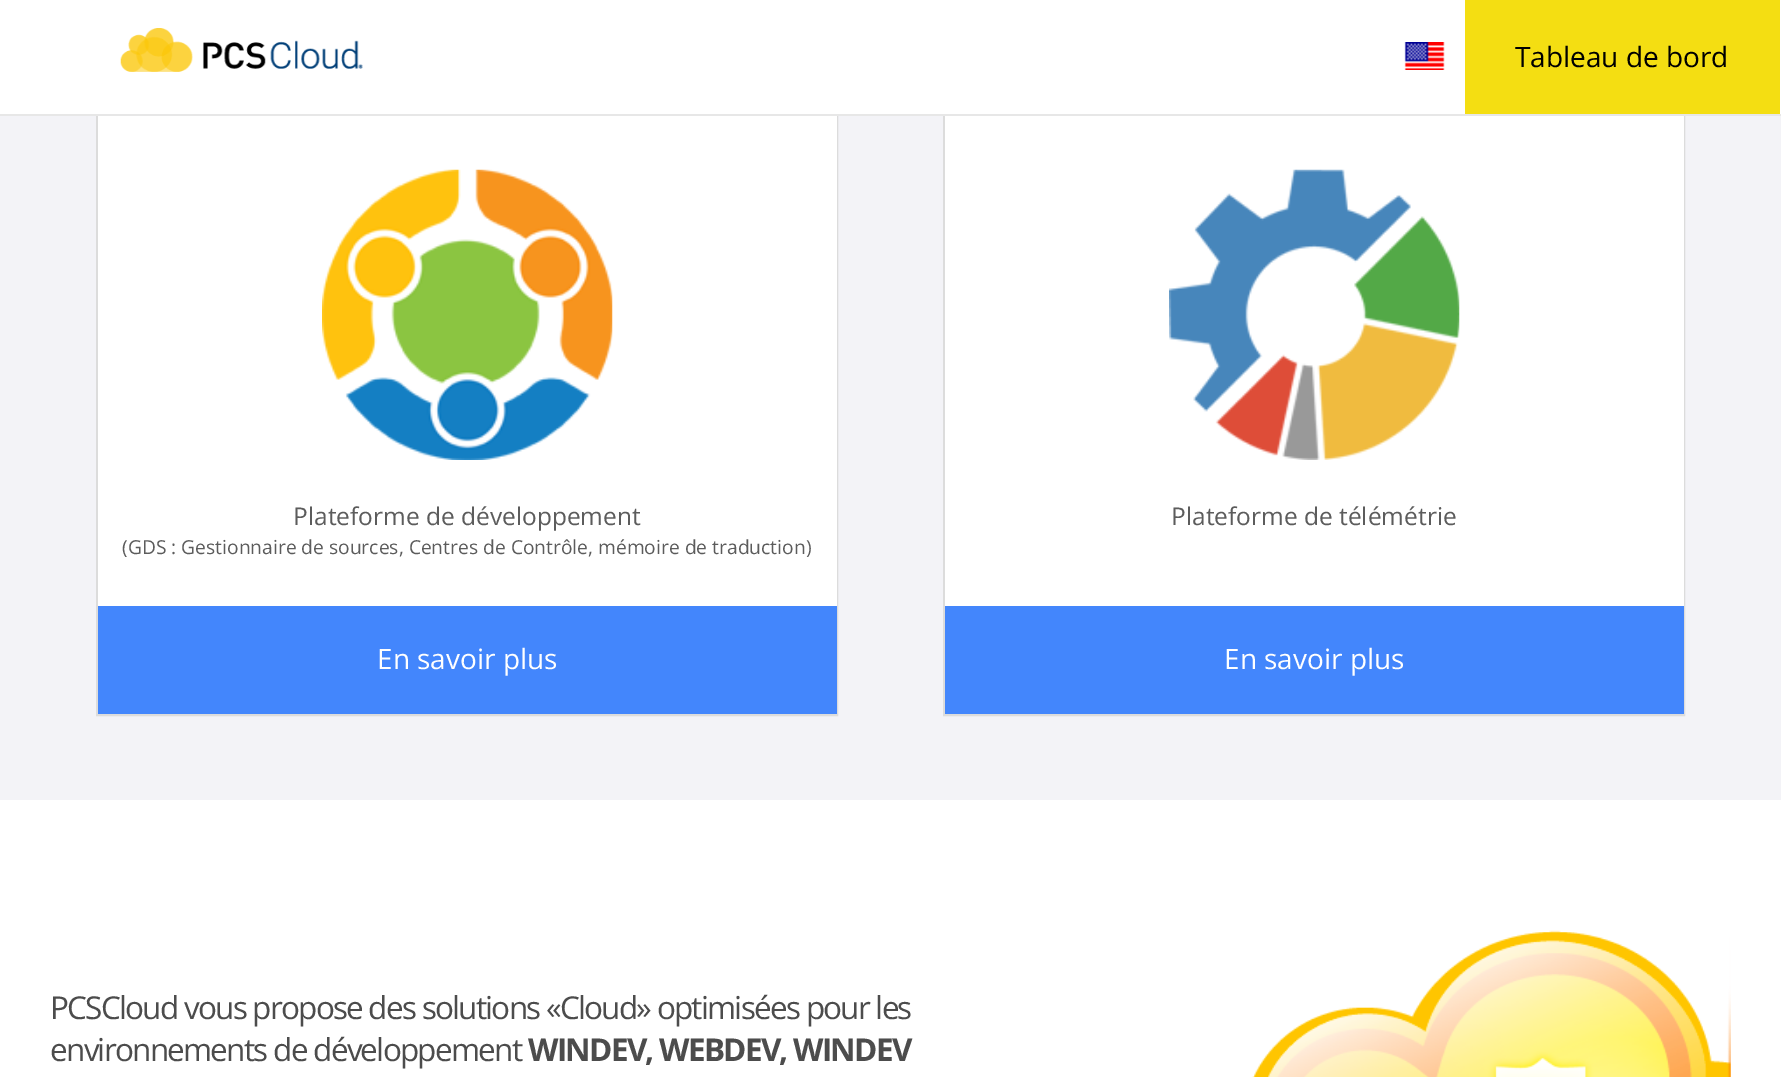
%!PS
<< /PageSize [1781 1077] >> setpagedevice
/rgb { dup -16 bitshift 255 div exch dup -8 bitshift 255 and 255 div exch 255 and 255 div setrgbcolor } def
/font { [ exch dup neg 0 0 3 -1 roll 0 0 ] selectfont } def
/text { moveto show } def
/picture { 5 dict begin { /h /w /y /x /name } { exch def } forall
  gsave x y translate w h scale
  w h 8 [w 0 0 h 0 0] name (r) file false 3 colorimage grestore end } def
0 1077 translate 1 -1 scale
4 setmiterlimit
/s1 { /OpenSans-Regular 28 font 16#000000 rgb } def
/s2 { /OpenSans-Regular 24.5 font 16#5C5C5C rgb } def
/s3 { /OpenSans-Regular 19.25 font 16#5C5C5C rgb } def
/s4 { /OpenSans-Regular 28 font 16#FFFFFF rgb } def
16#FFFFFF rgb
0 0 1781 1077 rectfill
16#F3F3F7 rgb
0 116 1781 684 rectfill
16#DCDCDC rgb
2 setlinewidth
97 27 740 688 rectstroke
944 27 740 688 rectstroke
16#FFFFFF rgb
96 26 1589 88 rectfill
16#E7E7E7 rgb
0 114 1781 2 rectfill
(pic1.raw) 120 28 243 44 picture
(pic2.raw) 1404 42 41 28 picture
16#F4DE12 rgb
1465 0 315 114 rectfill
s1
(Tableau de bord) 1515 67 text
16#FFFFFF rgb
98 116 739 490 rectfill
(pic3.raw) 322 169 291 291 picture
s2
(Plateforme de développement) 293 525 text
s3
(\(GDS : Gestionnaire de sources, Centres de Contrôle, mémoire de traduction\)) 122 554 text
16#4386FC rgb
98 606 739 108 rectfill
s4
(En savoir plus) 377 669 text
945 116 739 490 rectfill
(pic4.raw) 1169 169 291 291 picture
s2
(Plateforme de télémétrie) 1171 525 text
16#4386FC rgb
945 606 739 108 rectfill
s4
(En savoir plus) 1224 669 text
/OpenSans-Regular 31.5 font
16#4C4C4C rgb
50 1019 moveto -1.75 0 (PCSCloud vous propose des solutions «Cloud» optimisées pour les) ashow
50 1061 moveto -1.75 0 (environnements de développement) ashow
/OpenSans-Bold 31.5 font
528 1061 moveto -1.75 0 (WINDEV, WEBDEV, WINDEV) ashow
(pic5.raw) 1252 930 479 147 picture
showpage
